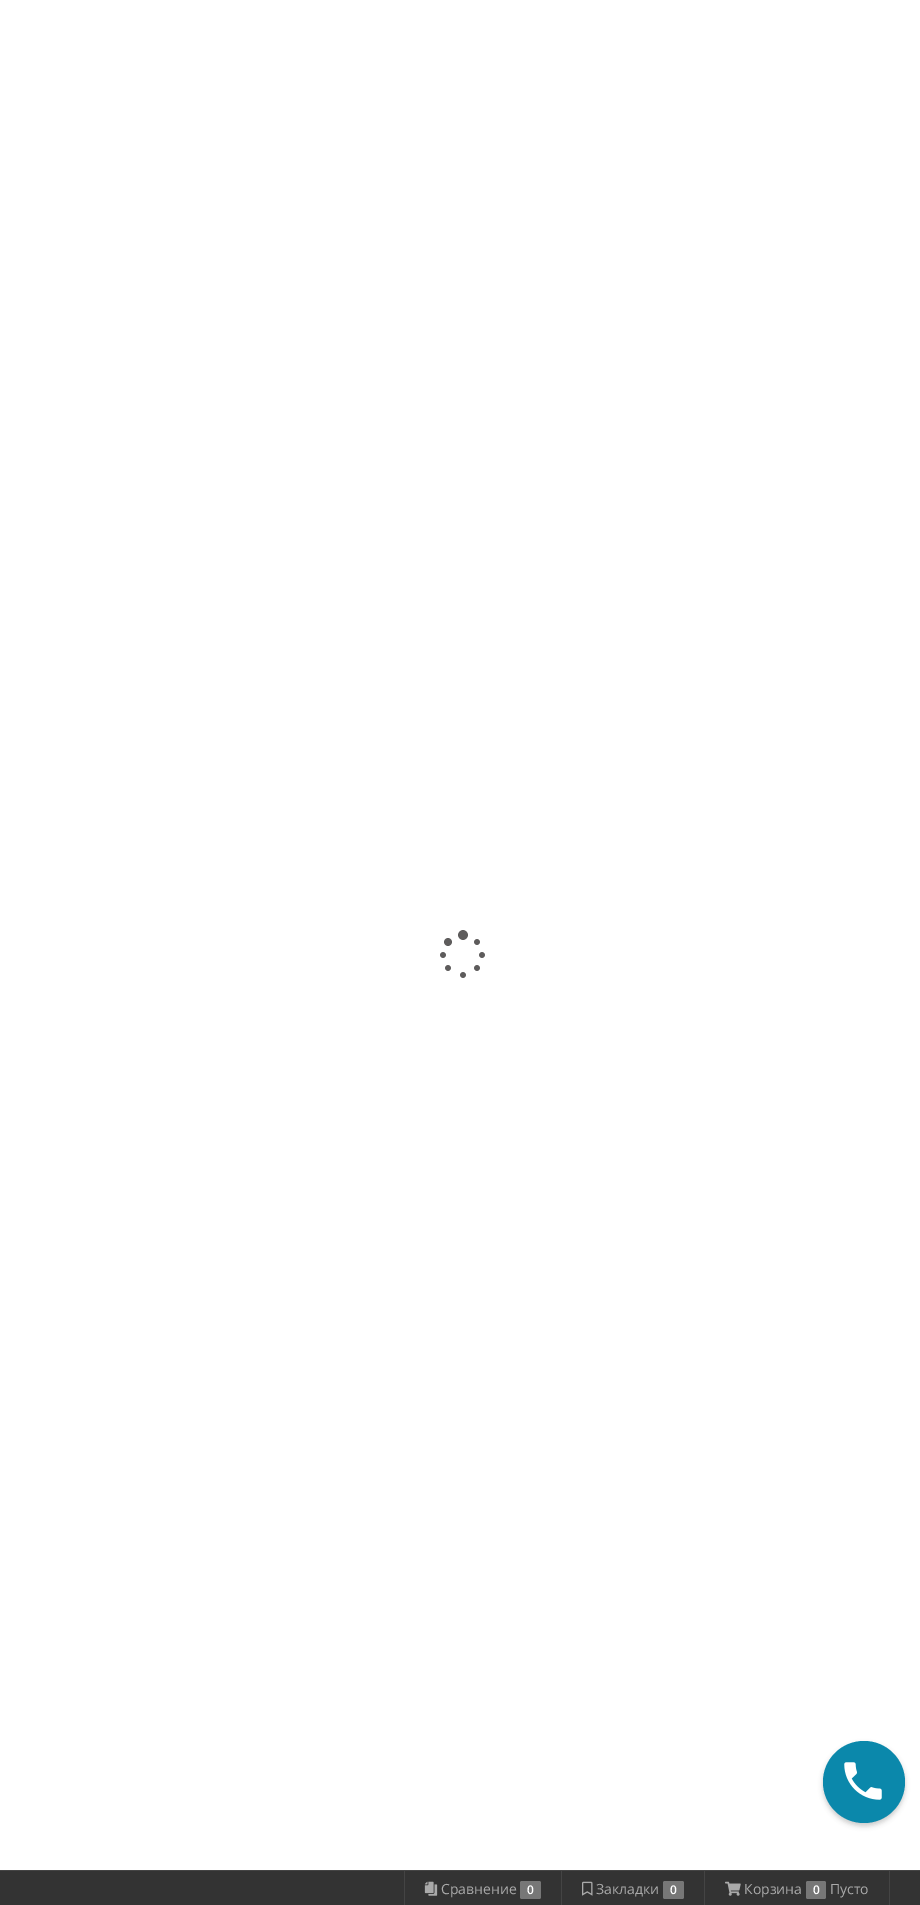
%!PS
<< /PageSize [920 1905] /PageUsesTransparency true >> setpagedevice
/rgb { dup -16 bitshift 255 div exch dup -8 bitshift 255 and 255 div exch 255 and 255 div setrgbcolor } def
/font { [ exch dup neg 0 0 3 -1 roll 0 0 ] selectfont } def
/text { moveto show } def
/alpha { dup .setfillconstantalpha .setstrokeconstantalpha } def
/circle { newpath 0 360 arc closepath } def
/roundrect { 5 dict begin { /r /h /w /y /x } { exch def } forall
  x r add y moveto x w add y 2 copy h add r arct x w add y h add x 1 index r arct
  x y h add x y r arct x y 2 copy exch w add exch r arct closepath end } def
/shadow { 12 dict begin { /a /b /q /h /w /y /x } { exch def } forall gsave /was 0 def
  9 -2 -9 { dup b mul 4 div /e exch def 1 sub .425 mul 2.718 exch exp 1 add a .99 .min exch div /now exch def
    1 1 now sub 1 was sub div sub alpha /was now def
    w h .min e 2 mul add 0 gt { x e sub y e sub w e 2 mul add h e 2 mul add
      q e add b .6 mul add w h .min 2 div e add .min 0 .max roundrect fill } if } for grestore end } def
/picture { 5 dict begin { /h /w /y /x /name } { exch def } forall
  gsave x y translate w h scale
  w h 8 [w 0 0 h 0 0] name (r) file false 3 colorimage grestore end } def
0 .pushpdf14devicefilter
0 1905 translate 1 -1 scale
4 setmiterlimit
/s1 { /OpenSans-Regular 14 font 16#AAAAAA rgb } def
/s2 { /OpenSans-SemiBold 12 font 16#FFFFFF rgb } def
16#FFFFFF rgb
0 0 920 1905 rectfill
(pic1.raw) 440 930 45 48 picture
16#000000 rgb
823 1744 82 82 41 2.5 0.2 shadow
16#0B88AB rgb
864 1782 41 circle fill
(pic2.raw) 844 1762 38 38 picture
16#333333 rgb
0 1871 920 34 rectfill
16#444444 rgb
0 1870 920 1 rectfill
889 1871 1 34 rectfill
404 1871 1 34 rectfill
(pic3.raw) 424 1881 14 15 picture
s1
(Сравнение) 441 1894 text
16#777777 rgb
520 1881 21 18 2 roundrect fill
s2
(0) 527 1894 text
16#444444 rgb
561 1871 1 34 rectfill
(pic4.raw) 582 1881 11 15 picture
s1
(Закладки) 596 1894 text
16#777777 rgb
663 1881 21 18 2 roundrect fill
s2
(0) 670 1894 text
16#444444 rgb
704 1871 1 34 rectfill
(pic5.raw) 725 1881 16 15 picture
s1
(Корзина) 744 1894 text
16#777777 rgb
806 1881 20 18 2 roundrect fill
s2
(0) 813 1894 text
s1
(Пусто) 830 1894 text
.poppdf14devicefilter showpage
